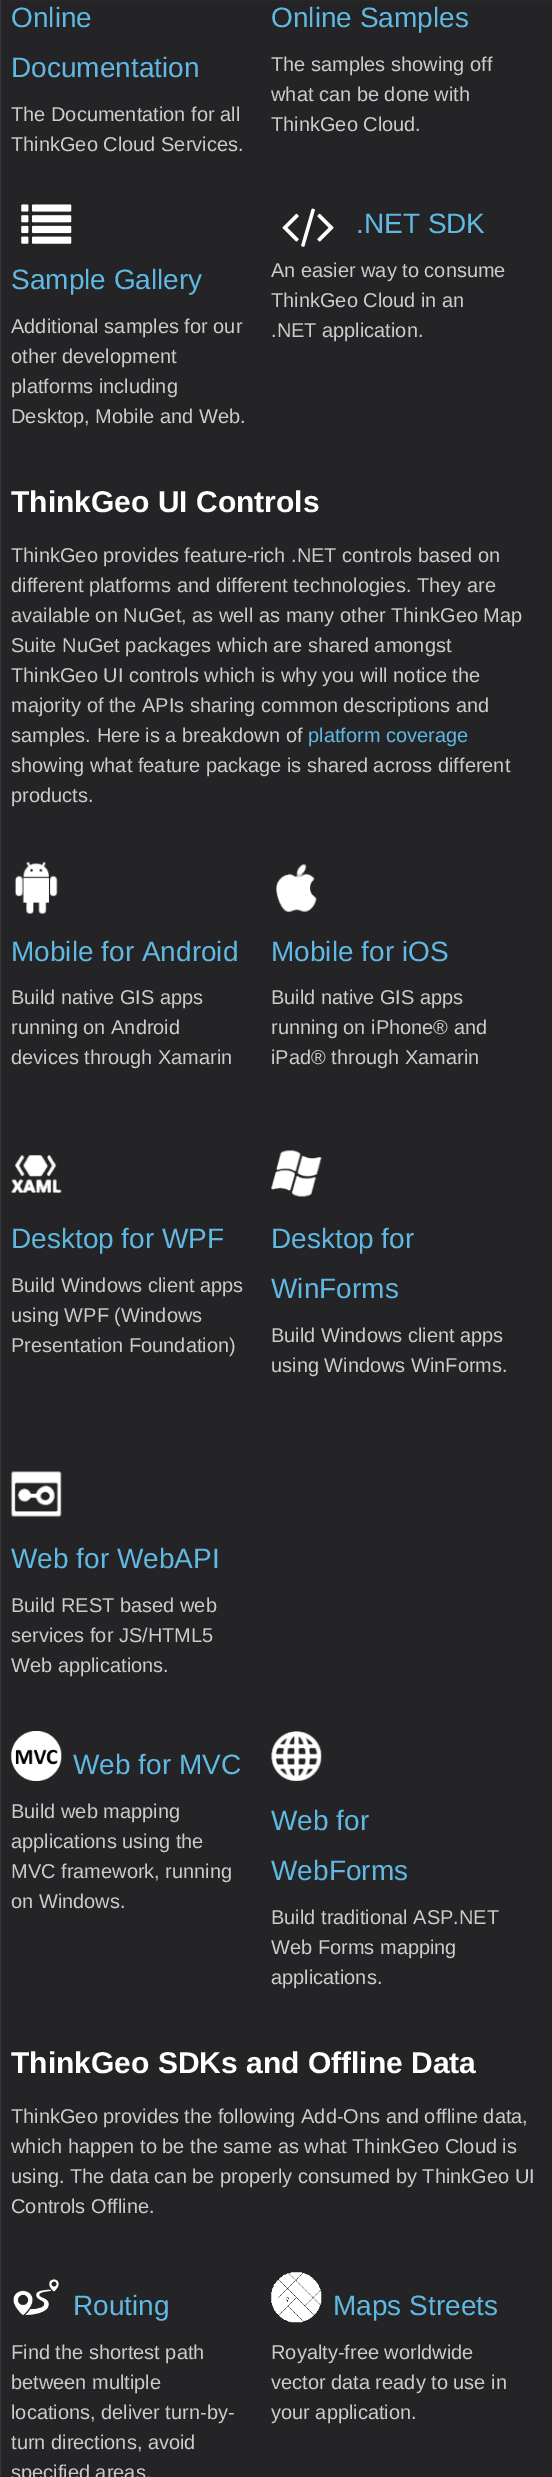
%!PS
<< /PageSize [552 2477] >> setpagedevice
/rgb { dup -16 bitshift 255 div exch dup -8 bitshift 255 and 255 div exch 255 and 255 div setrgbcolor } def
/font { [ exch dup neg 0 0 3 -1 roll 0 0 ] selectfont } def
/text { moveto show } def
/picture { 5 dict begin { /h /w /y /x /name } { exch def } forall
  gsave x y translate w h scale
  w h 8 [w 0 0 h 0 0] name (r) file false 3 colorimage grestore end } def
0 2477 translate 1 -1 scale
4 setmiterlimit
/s1 { /LiberationSans-Regular 28 font 16#60B9E2 rgb } def
/s2 { /LiberationSans-Regular 20 font 16#CCCCCC rgb } def
/s3 { /LiberationSans-Bold 30 font 16#FFFFFF rgb } def
/s4 { /LiberationSans-Regular 20 font 16#60B9E2 rgb } def
16#242426 rgb
0 0 552 2477 rectfill
16#363638 rgb
0.5 -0.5 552 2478 rectstroke
s1
(Online) 11 27 text
(Documentation) 11 77 text
s2
(The Documentation for all) 11 121 text
(ThinkGeo Cloud Services.) 11 151 text
s1
(Online Samples) 271 27 text
s2
(The samples showing off) 271 71 text
(what can be done with) 271 101 text
(ThinkGeo Cloud.) 271 131 text
(pic1.raw) 21 204 51 40 picture
s1
(Sample Gallery) 11 289 text
s2
(Additional samples for our) 11 333 text
(other development) 11 363 text
(platforms including) 11 393 text
(Desktop, Mobile and Web.) 11 423 text
(pic2.raw) 282 208 52 39 picture
s1
(.NET SDK) 356 233 text
s2
(An easier way to consume) 271 277 text
(ThinkGeo Cloud in an) 271 307 text
(.NET application.) 271 337 text
s3
(ThinkGeo UI Controls) 11 512 text
s2
(ThinkGeo provides feature-rich .NET controls based on) 11 562 text
(different platforms and different technologies. They are) 11 592 text
(available on NuGet, as well as many other ThinkGeo Map) 11 622 text
(Suite NuGet packages which are shared amongst) 11 652 text
(ThinkGeo UI controls which is why you will notice the) 11 682 text
(majority of the APIs sharing common descriptions and) 11 712 text
(samples. Here is a breakdown of) 11 742 text
s4
(platform coverage) 308 742 text
s2
(showing what feature package is shared across different) 11 772 text
(products.) 11 802 text
(pic3.raw) 15 862 43 52 picture
s1
(Mobile for Android) 11 961 text
s2
(Build native GIS apps) 11 1004 text
(running on Android) 11 1034 text
(devices through Xamarin) 11 1064 text
(pic4.raw) 276 863 41 50 picture
s1
(Mobile for iOS) 271 961 text
s2
(Build native GIS apps) 271 1004 text
(running on iPhone® and) 271 1034 text
(iPad® through Xamarin) 271 1064 text
(pic5.raw) 11 1155 51 38 picture
s1
(Desktop for WPF) 11 1248 text
s2
(Build Windows client apps) 11 1292 text
(using WPF \(Windows) 11 1322 text
(Presentation Foundation\)) 11 1352 text
(pic6.raw) 271 1150 51 47 picture
s1
(Desktop for) 271 1248 text
(WinForms) 271 1298 text
s2
(Build Windows client apps) 271 1342 text
(using Windows WinForms.) 271 1372 text
(pic7.raw) 11 1471 51 46 picture
s1
(Web for WebAPI) 11 1568 text
s2
(Build REST based web) 11 1612 text
(services for JS/HTML5) 11 1642 text
(Web applications.) 11 1672 text
(pic8.raw) 11 1731 51 50 picture
s1
(Web for MVC) 73 1774 text
s2
(Build web mapping) 11 1818 text
(applications using the) 11 1848 text
(MVC framework, running) 11 1878 text
(on Windows.) 11 1908 text
(pic9.raw) 271 1731 51 50 picture
s1
(Web for) 271 1830 text
(WebForms) 271 1880 text
s2
(Build traditional ASP.NET) 271 1924 text
(Web Forms mapping) 271 1954 text
(applications.) 271 1984 text
s3
(ThinkGeo SDKs and Offline Data) 11 2073 text
s2
(ThinkGeo provides the following Add-Ons and offline data,) 11 2123 text
(which happen to be the same as what ThinkGeo Cloud is) 11 2153 text
(using. The data can be properly consumed by ThinkGeo UI) 11 2183 text
(Controls Offline.) 11 2213 text
(pic10.raw) 13 2279 46 37 picture
s1
(Routing) 73 2315 text
s2
(Find the shortest path) 11 2359 text
(between multiple) 11 2389 text
(locations, deliver turn-by-) 11 2419 text
(turn directions, avoid) 11 2449 text
(specified areas.) 11 2479 text
(pic11.raw) 271 2272 51 51 picture
s1
(Maps Streets) 333 2315 text
s2
(Royalty-free worldwide) 271 2359 text
(vector data ready to use in) 271 2389 text
(your application.) 271 2419 text
showpage
